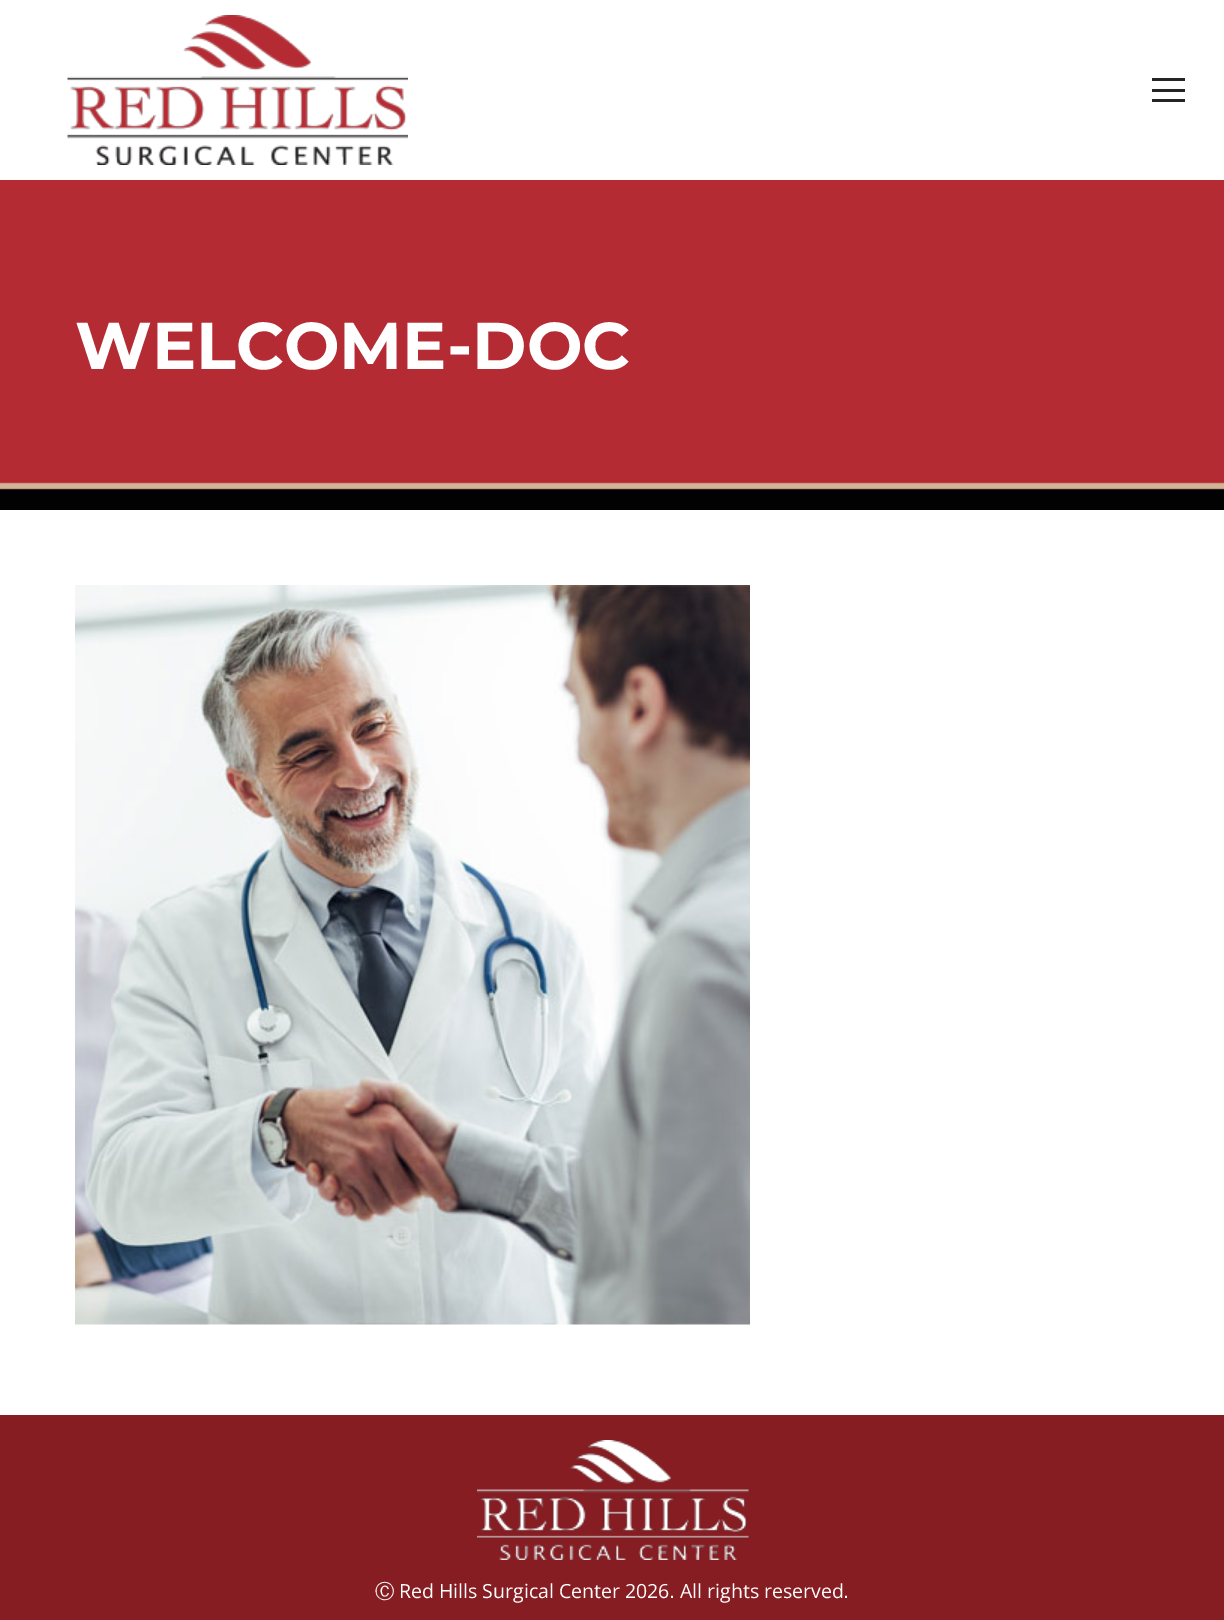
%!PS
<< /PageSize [1224 1620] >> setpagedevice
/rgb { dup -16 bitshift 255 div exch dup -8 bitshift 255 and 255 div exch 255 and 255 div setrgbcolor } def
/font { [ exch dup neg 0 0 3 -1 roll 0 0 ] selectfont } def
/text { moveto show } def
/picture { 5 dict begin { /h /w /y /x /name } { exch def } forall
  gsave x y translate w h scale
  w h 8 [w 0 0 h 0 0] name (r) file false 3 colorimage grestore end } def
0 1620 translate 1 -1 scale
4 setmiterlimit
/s1 { /Montserrat-Bold 66 font 16#FFFFFF rgb } def
/s2 { /WenQuanYiZenHei-Medium 19.5 font 16#FFFFFF rgb } def
/s3 { /OpenSans-Regular 19.5 font 16#FFFFFF rgb } def
16#FFFFFF rgb
0 0 1224 1620 rectfill
(pic1.raw) 67 15 341 150 picture
16#252525 rgb
1152 78 33 3 rectfill
1152 89 33 3 rectfill
1152 99 33 3 rectfill
(pic2.raw) 0 180 1224 330 picture
s1
(WELCOME-DOC) 75 369 text
(pic3.raw) 75 585 675 740 picture
16#861D23 rgb
0 1415 1224 205 rectfill
(pic4.raw) 477 1440 272 120 picture
s2
(Ⓒ) 375 1598 text
s3
(Red Hills Surgical Center 2026) 399 1598 text
s2
(.) 669 1598 text
s3
(All rights reserved) 680 1598 text
s2
(.) 843 1598 text
showpage
